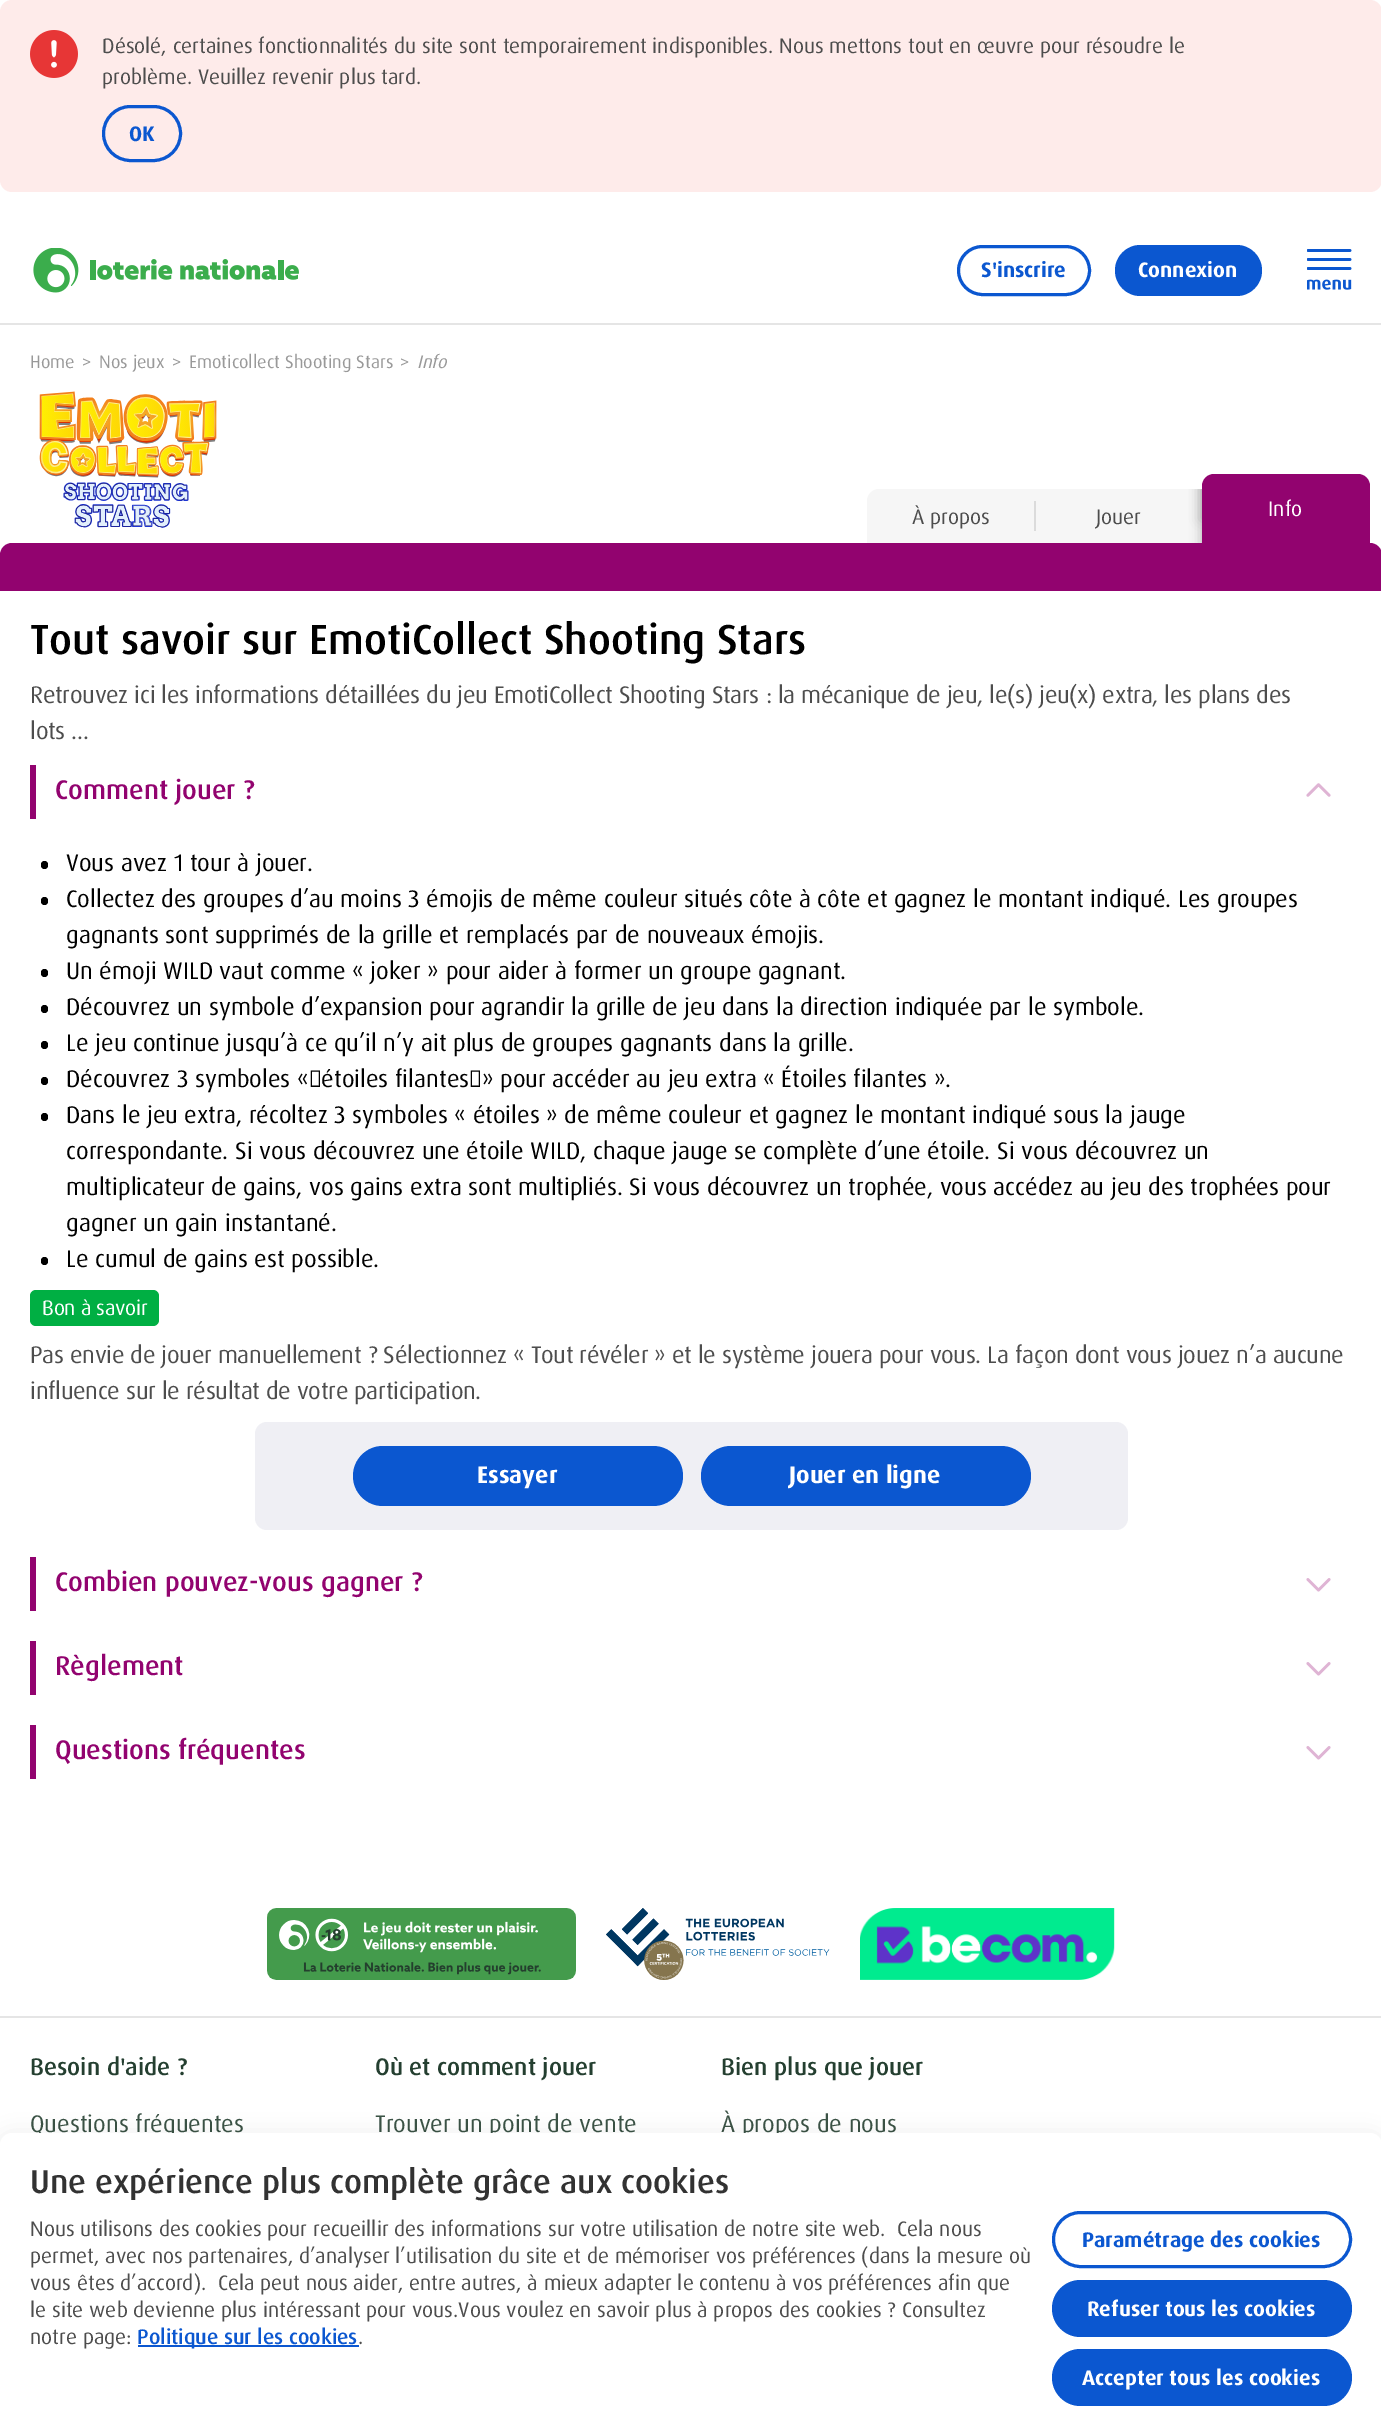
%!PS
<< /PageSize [1381 2436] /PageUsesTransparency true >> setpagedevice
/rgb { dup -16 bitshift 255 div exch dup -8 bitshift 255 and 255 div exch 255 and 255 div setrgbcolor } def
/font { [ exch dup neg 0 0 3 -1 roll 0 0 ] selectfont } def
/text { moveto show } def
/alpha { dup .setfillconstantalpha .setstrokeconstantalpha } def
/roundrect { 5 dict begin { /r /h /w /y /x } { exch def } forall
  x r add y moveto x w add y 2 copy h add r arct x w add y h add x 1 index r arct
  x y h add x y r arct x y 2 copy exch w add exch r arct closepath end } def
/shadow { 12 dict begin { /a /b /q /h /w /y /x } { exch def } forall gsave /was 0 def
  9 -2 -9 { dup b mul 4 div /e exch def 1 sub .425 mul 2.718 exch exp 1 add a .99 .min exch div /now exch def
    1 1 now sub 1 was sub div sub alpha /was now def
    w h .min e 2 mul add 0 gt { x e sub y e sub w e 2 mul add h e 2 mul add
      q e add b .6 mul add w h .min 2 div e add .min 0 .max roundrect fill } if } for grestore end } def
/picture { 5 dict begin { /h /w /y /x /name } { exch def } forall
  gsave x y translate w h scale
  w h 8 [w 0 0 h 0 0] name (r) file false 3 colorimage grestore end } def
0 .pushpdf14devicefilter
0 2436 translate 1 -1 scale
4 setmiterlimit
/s1 { /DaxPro-Regular 21 font 16#4D4D4D rgb } def
/s2 { /DaxPro-Bold 21 font 16#0B57D0 rgb } def
/s3 { /DaxPro-Bold 21 font 16#FFFFFF rgb } def
/s4 { /DaxPro-Regular 18 font 16#999999 rgb } def
/s5 { /DaxPro-Italic 18 font 16#999999 rgb } def
/s6 { /DaxPro-Regular 21 font 16#FFFFFF rgb } def
/s7 { /DaxPro-Medium 42 font 16#000000 rgb } def
/s8 { /DaxPro-Medium 27 font 16#92036F rgb } def
/s9 { /DaxPro-Regular 24 font 16#000000 rgb } def
/s10 { /DaxPro-Bold 24 font 16#FFFFFF rgb } def
/s11 { /DaxPro-Medium 24 font 16#243F30 rgb } def
/s12 { /DaxPro-Regular 24 font 16#3A5245 rgb } def
/s13 { /DaxPro-Medium 33 font 16#323232 rgb } def
/s14 { /DaxPro-Medium 21 font 16#0B57D0 rgb } def
16#FFFFFF rgb
0 0 1381 2436 rectfill
16#E5E5E5 rgb
0 323 1381 2 rectfill
16#FEEBEA rgb
0 0 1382 192 12 roundrect fill
(pic1.raw) 30 30 48 48 picture
s1
(Désolé, certaines fonctionnalités du site sont temporairement indisponibles. Nous mettons tout en œuvre pour résoudre le) 102 53 text
(problème. Veuillez revenir plus tard.) 102 84 text
16#0B57D0 rgb
3 setlinewidth
103.5 106.5 77 54 27 roundrect stroke
s2
(OK) 129 141 text
(pic2.raw) 33 248 266 45 picture
958.5 246.5 131 48 24 roundrect stroke
(S'inscrire) 981 277 text
1115 245 147 51 25.5 roundrect fill
s3
(Connexion) 1138 277 text
(pic3.raw) 1307 249 45 41 picture
s4
(Home) 30 368 text
(>) 82 368 text
(Nos jeux) 99 368 text
(>) 172 368 text
(Emoticollect Shooting Stars) 189 368 text
(>) 400 368 text
s5
(Info) 417 368 text
(pic4.raw) 39 391 178 137 picture
16#F6F6F6 rgb
879 489 moveto 1035 489 lineto 1035 543 lineto 867 543 lineto 867 501 lineto 867 494.5 872.5 489 879 489 curveto closepath fill
1035 489 167 54 rectfill
16#DBDBDB rgb
1034 501 2 30 rectfill
s1
(À propos) 912 524 text
(Jouer) 1096 524 text
16#92036F rgb
1214 474 moveto 1358 474 lineto 1364.5 474 1370 479.5 1370 486 curveto 1370 543 lineto 1202 543 lineto 1202 486 lineto 1202 479.5 1207.5 474 1214 474 curveto closepath fill
gsave
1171.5 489 moveto 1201.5 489 lineto 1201.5 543 lineto 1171.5 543 lineto closepath clip newpath
16#ACACAC rgb
1202 465 5 54 0 6 1 shadow
1202 489 5 54 0 6 1 shadow
grestore
s6
(Info) 1268 516 text
16#92036F rgb
12 543 moveto 1370 543 lineto 1376.5 543 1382 548.5 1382 555 curveto 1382 591 lineto 0 591 lineto 0 555 lineto 0 548.5 5.5 543 12 543 curveto closepath fill
s7
(Tout savoir sur EmotiCollect Shooting Stars) 30 654 text
/DaxPro-Regular 24 font
16#4D4D4D rgb
30 703 moveto -0.3 0 (Retrouvez ici les informations détaillées du jeu EmotiCollect Shooting Stars : la mécanique de jeu, le\(s\) jeu\(x\) extra, les plans des) ashow
30 739 moveto -0.3 0 (lots …) ashow
16#92036F rgb
30 765 6 54 rectfill
s8
(Comment jouer ?) 55 799 text
(pic5.raw) 1306 783 25 14 picture
16#000000 rgb
41 861 7 8 3.5 roundrect fill
s9
(Vous avez 1 tour à jouer.) 66 871 text
41 897 7 8 3.5 roundrect fill
(Collectez des groupes d’au moins 3 émojis de même couleur situés côte à côte et gagnez le montant indiqué. Les groupes) 66 907 text
(gagnants sont supprimés de la grille et remplacés par de nouveaux émojis.) 66 943 text
41 969 7 8 3.5 roundrect fill
(Un émoji WILD vaut comme « joker » pour aider à former un groupe gagnant.) 66 979 text
41 1005 7 8 3.5 roundrect fill
(Découvrez un symbole d’expansion pour agrandir la grille de jeu dans la direction indiquée par le symbole.) 66 1015 text
41 1041 7 8 3.5 roundrect fill
(Le jeu continue jusqu’à ce qu’il n’y ait plus de groupes gagnants dans la grille.) 66 1051 text
41 1077 7 8 3.5 roundrect fill
(Découvrez 3 symboles « étoiles filantes » pour accéder au jeu extra « Étoiles filantes ».) 66 1087 text
41 1113 7 8 3.5 roundrect fill
(Dans le jeu extra, récoltez 3 symboles « étoiles » de même couleur et gagnez le montant indiqué sous la jauge) 66 1123 text
(correspondante. Si vous découvrez une étoile WILD, chaque jauge se complète d’une étoile. Si vous découvrez un) 66 1159 text
(multiplicateur de gains, vos gains extra sont multipliés. Si vous découvrez un trophée, vous accédez au jeu des trophées pour) 66 1195 text
(gagner un gain instantané.) 66 1231 text
41 1257 7 8 3.5 roundrect fill
(Le cumul de gains est possible.) 66 1267 text
16#00AF43 rgb
30 1290 129 36 6 roundrect fill
/DaxPro-Regular 21 font
16#FFFFFF rgb
42 1315 moveto -0.3 0 (Bon à savoir) ashow
/DaxPro-Regular 24 font
16#4D4D4D rgb
30 1363 moveto -0.3 0 (Pas envie de jouer manuellement ? Sélectionnez « Tout révéler » et le système jouera pour vous. La façon dont vous jouez n’a aucune) ashow
30 1399 moveto -0.3 0 (influence sur le résultat de votre participation.) ashow
16#EFEFF4 rgb
255 1422 873 108 12 roundrect fill
16#0B57D0 rgb
353 1446 330 60 30 roundrect fill
s10
(Essayer) 477 1483 text
16#0B57D0 rgb
701 1446 330 60 30 roundrect fill
s10
(Jouer en ligne) 789 1483 text
16#92036F rgb
30 1557 6 54 rectfill
s8
(Combien pouvez-vous gagner ?) 55 1591 text
(pic6.raw) 1306 1578 25 14 picture
30 1641 6 54 rectfill
(Règlement) 55 1675 text
(pic6.raw) 1306 1662 25 14 picture
30 1725 6 54 rectfill
(Questions fréquentes) 55 1759 text
(pic6.raw) 1306 1746 25 14 picture
(pic7.raw) 267 1908 309 72 picture
(pic8.raw) 606 1908 224 72 picture
(pic9.raw) 860 1908 255 72 picture
16#E5E5E5 rgb
0 2016 1381 2 rectfill
s11
(Besoin d'aide ?) 30 2075 text
s12
(Questions fréquentes) 30 2132 text
s11
(Où et comment jouer) 375 2075 text
s12
(Trouver un point de vente) 375 2132 text
s11
(Bien plus que jouer) 721 2075 text
s12
(À propos de nous) 721 2132 text
16#000000 rgb
0 2136 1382 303 12 10.5 0.08 shadow
16#FFFFFF rgb
12 2133 moveto 1370 2133 lineto 1376.5 2133 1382 2138.5 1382 2145 curveto 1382 2436 lineto 0 2436 lineto 0 2145 lineto 0 2138.5 5.5 2133 12 2133 curveto closepath fill
s13
(Une expérience plus complète grâce aux cookies) 30 2193 text
s1
(Nous utilisons des cookies pour recueillir des informations sur votre utilisation de notre site web.  Cela nous) 30 2236 text
(permet, avec nos partenaires, d’analyser l’utilisation du site et de mémoriser vos préférences \(dans la mesure où) 30 2263 text
(vous êtes d’accord\).  Cela peut nous aider, entre autres, à mieux adapter le contenu à vos préférences afin que) 30 2290 text
(le site web devienne plus intéressant pour vous.Vous voulez en savoir plus à propos des cookies ? Consultez) 30 2317 text
(notre page:) 30 2344 text
16#0B57D0 rgb
138 2345 221 2 rectfill
s14
(Politique sur les cookies) 137 2344 text
s1
(.) 358 2344 text
16#0B57D0 rgb
1053.5 2212.5 297 54 27 roundrect stroke
s2
(Paramétrage des cookies) 1082 2247 text
1052 2280 300 57 28.5 roundrect fill
s3
(Refuser tous les cookies) 1087 2316 text
16#0B57D0 rgb
1052 2349 300 57 28.5 roundrect fill
s3
(Accepter tous les cookies) 1082 2385 text
.poppdf14devicefilter showpage
